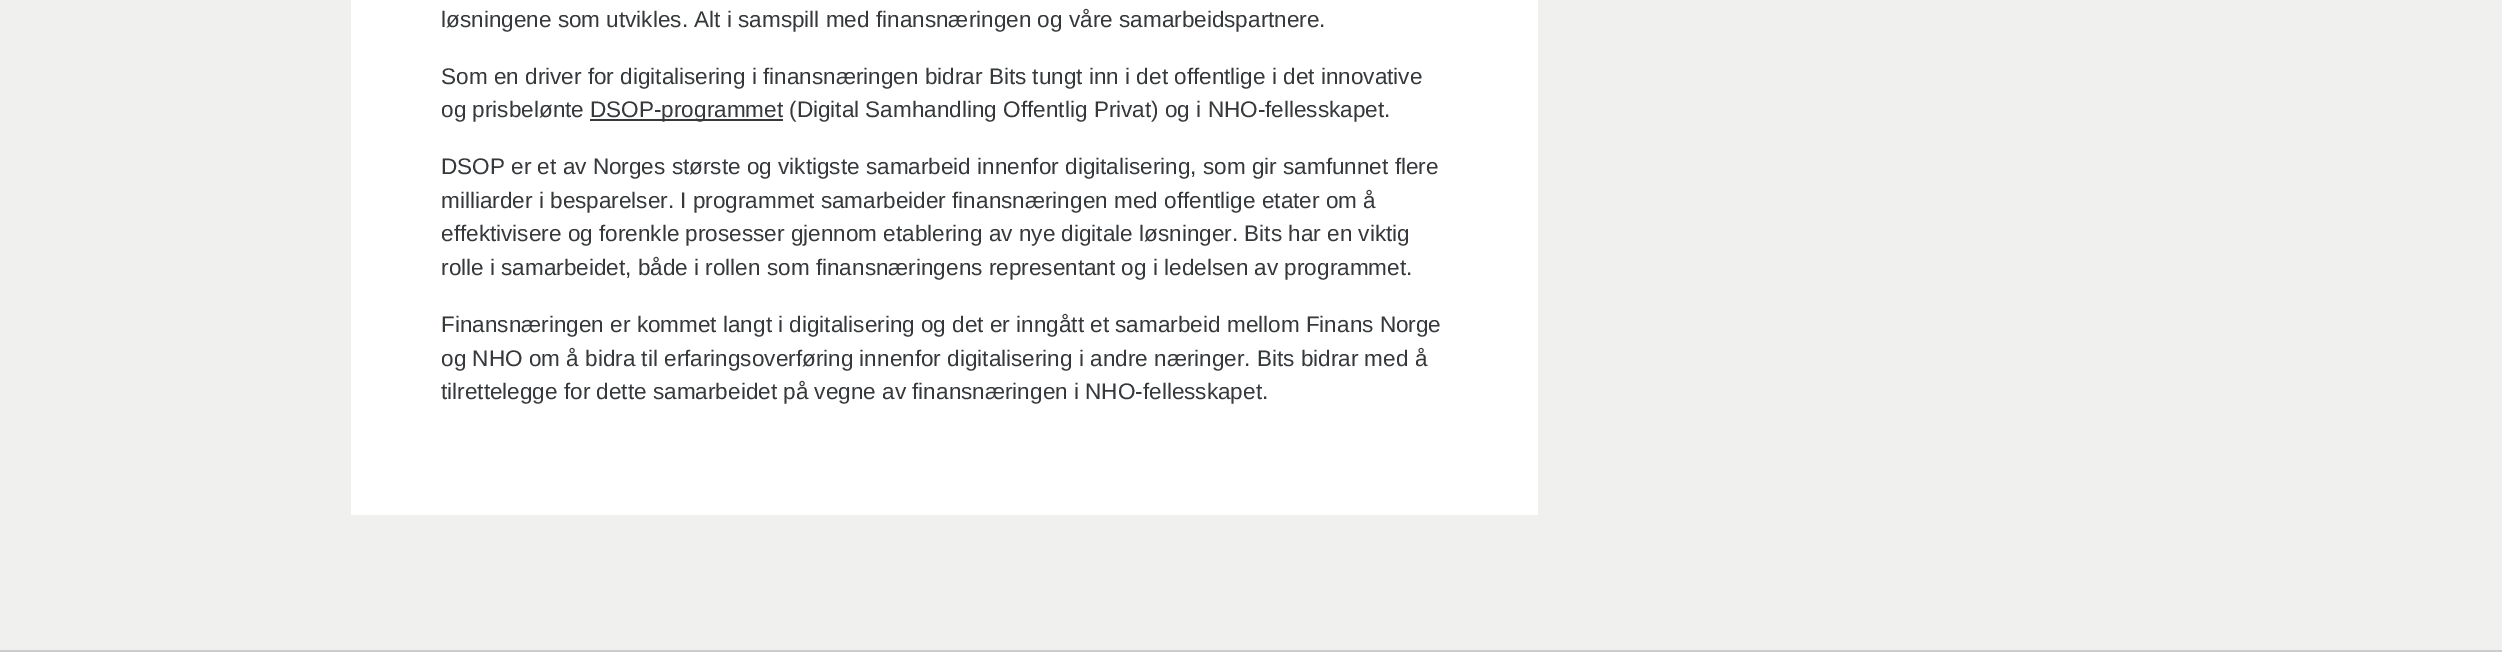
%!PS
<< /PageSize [2502 665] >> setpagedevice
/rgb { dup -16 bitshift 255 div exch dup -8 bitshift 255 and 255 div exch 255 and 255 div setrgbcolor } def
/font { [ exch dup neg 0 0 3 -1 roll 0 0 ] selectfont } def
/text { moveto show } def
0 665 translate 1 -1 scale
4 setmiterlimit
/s1 { /LiberationSans-Regular 22.55 font 16#36393B rgb } def
16#F0F0EF rgb
0 0 2502 665 rectfill
16#FFFFFF rgb
351 0 1187 515 rectfill
s1
(løsningene som utvikles. Alt i samspill med finansnæringen og våre samarbeidspartnere.) 441 27 text
(Som en driver for digitalisering i finansnæringen bidrar Bits tungt inn i det offentlige i det innovative) 441 84 text
(og prisbelønte) 441 117 text
16#35393C rgb
590 119 193 2 rectfill
s1
(DSOP-programmet) 590 117 text
(\(Digital Samhandling Offentlig Privat\) og i NHO-fellesskapet.) 789 117 text
(DSOP er et av Norges største og viktigste samarbeid innenfor digitalisering, som gir samfunnet flere) 441 174 text
(milliarder i besparelser. I programmet samarbeider finansnæringen med offentlige etater om å) 441 208 text
(effektivisere og forenkle prosesser gjennom etablering av nye digitale løsninger. Bits har en viktig) 441 241 text
(rolle i samarbeidet, både i rollen som finansnæringens representant og i ledelsen av programmet.) 441 275 text
(Finansnæringen er kommet langt i digitalisering og det er inngått et samarbeid mellom Finans Norge) 441 332 text
(og NHO om å bidra til erfaringsoverføring innenfor digitalisering i andre næringer. Bits bidrar med å) 441 366 text
(tilrettelegge for dette samarbeidet på vegne av finansnæringen i NHO-fellesskapet.) 441 399 text
16#FFFFFF rgb
0 652 2502 13 rectfill
16#CCCCCC rgb
0 650 2502 2 rectfill
showpage
